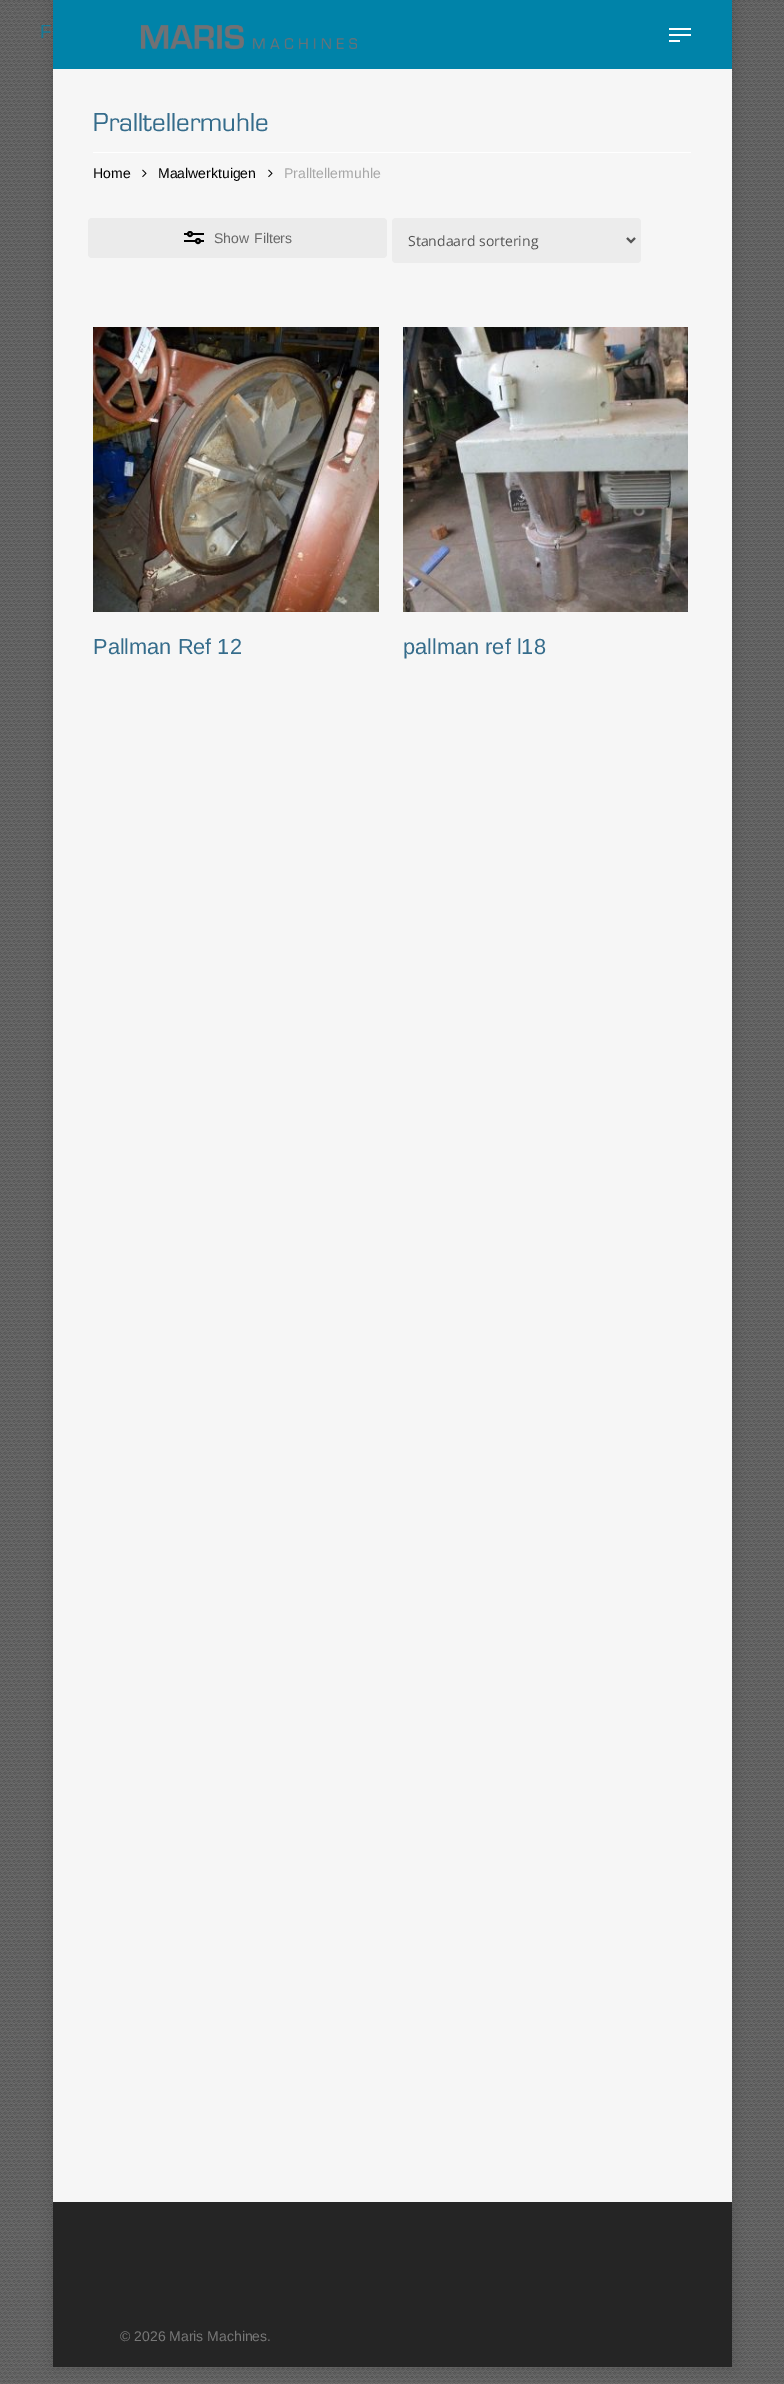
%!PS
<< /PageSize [784 2384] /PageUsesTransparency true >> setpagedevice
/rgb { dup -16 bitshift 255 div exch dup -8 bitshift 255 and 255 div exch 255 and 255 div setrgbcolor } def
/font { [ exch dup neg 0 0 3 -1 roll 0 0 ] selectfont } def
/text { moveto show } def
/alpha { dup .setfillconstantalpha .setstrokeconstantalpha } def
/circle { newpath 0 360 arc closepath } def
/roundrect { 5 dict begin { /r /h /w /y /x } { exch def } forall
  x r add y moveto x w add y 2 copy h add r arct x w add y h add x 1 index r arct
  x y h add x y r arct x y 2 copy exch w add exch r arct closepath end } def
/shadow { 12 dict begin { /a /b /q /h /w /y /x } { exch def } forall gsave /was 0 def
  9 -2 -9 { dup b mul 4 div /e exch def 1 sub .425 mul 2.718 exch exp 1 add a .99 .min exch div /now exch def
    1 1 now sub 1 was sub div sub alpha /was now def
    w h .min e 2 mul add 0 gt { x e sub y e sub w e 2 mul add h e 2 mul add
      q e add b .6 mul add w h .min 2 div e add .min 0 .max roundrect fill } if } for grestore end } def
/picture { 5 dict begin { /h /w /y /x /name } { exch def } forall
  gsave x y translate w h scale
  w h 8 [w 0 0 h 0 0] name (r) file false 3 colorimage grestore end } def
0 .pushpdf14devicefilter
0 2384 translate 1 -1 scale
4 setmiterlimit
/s1 { /LiberationSans-Regular 19 font 16#167A97 rgb } def
/s2 { /LiberationSans-Regular 21.75 font 16#356C8B rgb } def
/s3 { /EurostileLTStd-Regular 24 font 16#356C8B rgb } def
/s4 { /LiberationSans-Regular 14 font 16#000000 rgb } def
/s5 { /LiberationSans-Regular 14 font 16#A7A7A7 rgb } def
/s6 { /LiberationSans-Regular 14 font 16#676767 rgb } def
/s7 { /OpenSans-Regular 14 font 16#555555 rgb } def
/s8 { /LiberationSans-Regular 14 font 16#777777 rgb } def
16#FFFFFF rgb
0 0 784 2384 rectfill
(pic1.raw) 0 0 784 2384 picture
16#000000 rgb
53 0 679 2367 0 7.5 0.15 shadow
16#0083A9 rgb
53 0 679 69 rectfill
(pic2.raw) 140 25 217 25 picture
16#FFFFFF rgb
669 28 22 2 rectfill
669 40 11 2 rectfill
669 34 22 2 rectfill
16#F6F6F6 rgb
53 69 679 2133 rectfill
s1
(F) 40 38 text
(pic3.raw) 93 327 286 285 picture
s2
(Pallman Ref 12) 93 654 text
(pic4.raw) 403 327 285 285 picture
(pallman ref l18) 403 654 text
16#FFFFFF rgb
93 152 598 1 rectfill
s3
(Pralltellermuhle) 93 131 text
s4
(Home) 93 178 text
(pic5.raw) 142 169 5 9 picture
(Maalwerktuigen) 158 178 text
(pic5.raw) 268 169 5 9 picture
s5
(Pralltellermuhle) 284 178 text
16#EBEBEB rgb
88 218 299 40 4 roundrect fill
16#000000 rgb
184 233 20 2 rectfill
184 240 20 2 rectfill
16#FFFFFF rgb
190 234 2 circle gsave fill grestore
16#000000 rgb
2 setlinewidth
stroke
16#FFFFFF rgb
198 241 2 circle gsave fill grestore
16#000000 rgb
stroke
s6
(Show) 214 243 text
(Filters) 254 243 text
16#ECECEC rgb
392 218 249 45 4 roundrect fill
16#555555 rgb
627 238 moveto 631 242 lineto 635 238 lineto stroke
s7
(Standaard sortering) 408 246 text
16#252525 rgb
53 2202 679 165 rectfill
s8
(© 2026 Maris Machines.) 120 2341 text
.poppdf14devicefilter showpage
